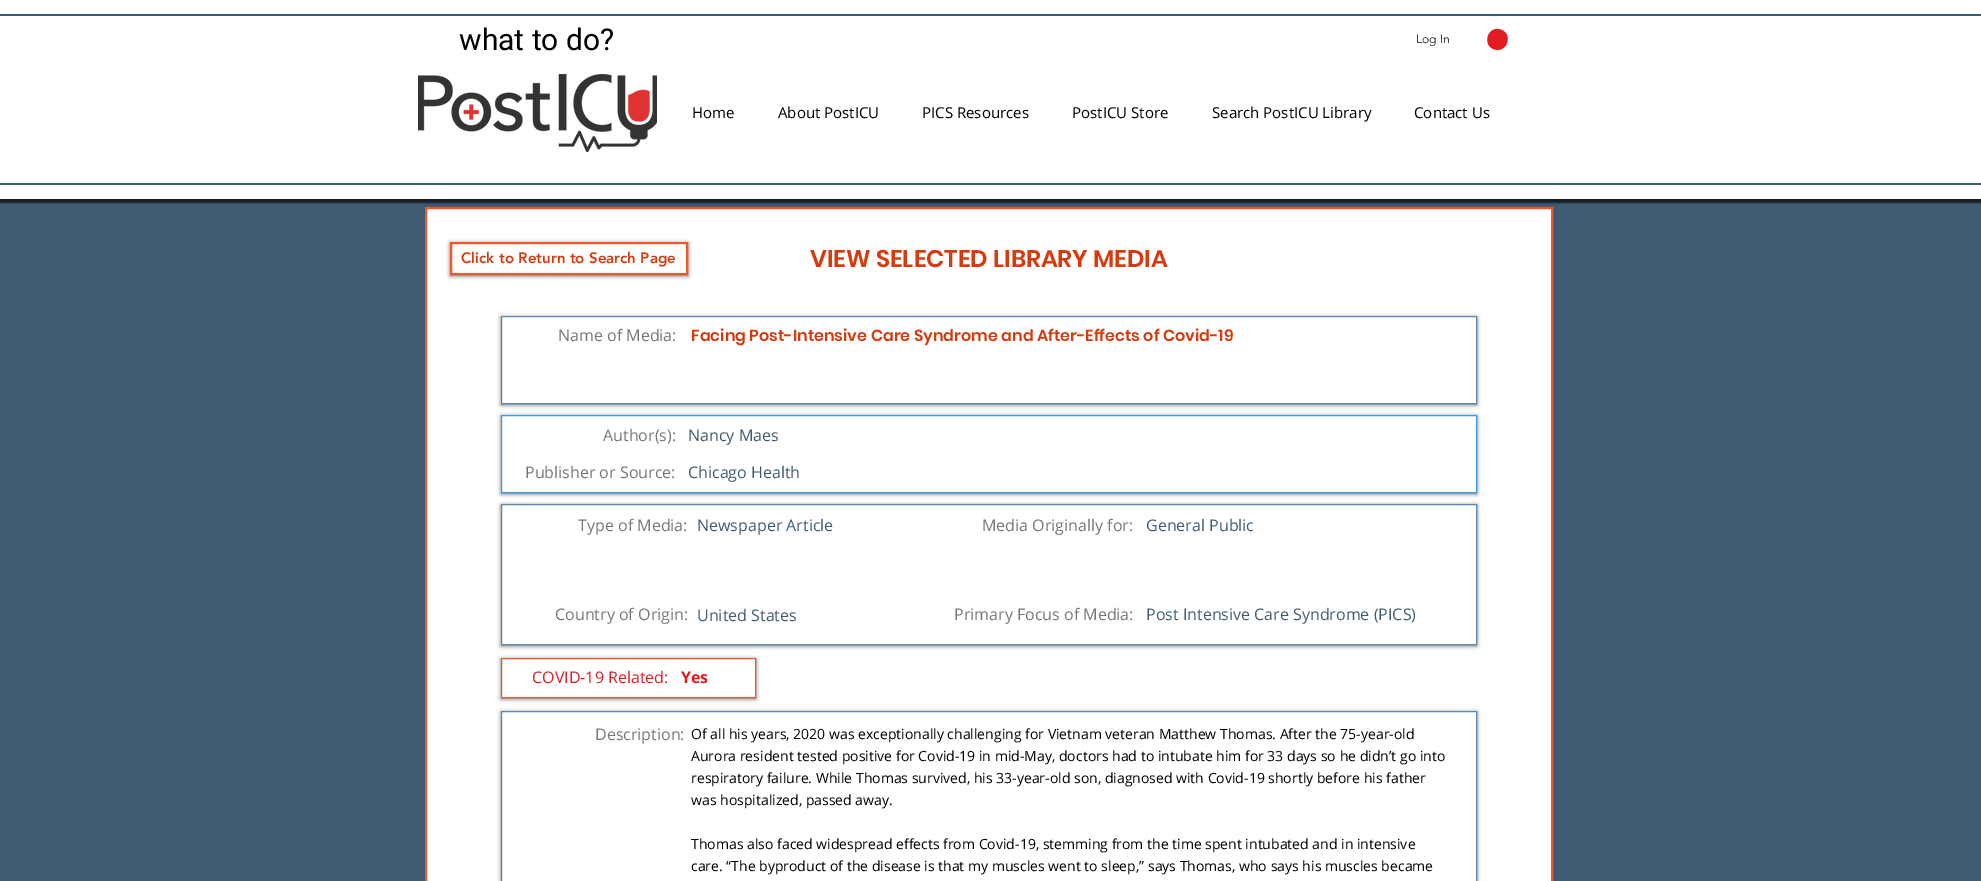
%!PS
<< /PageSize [1981 881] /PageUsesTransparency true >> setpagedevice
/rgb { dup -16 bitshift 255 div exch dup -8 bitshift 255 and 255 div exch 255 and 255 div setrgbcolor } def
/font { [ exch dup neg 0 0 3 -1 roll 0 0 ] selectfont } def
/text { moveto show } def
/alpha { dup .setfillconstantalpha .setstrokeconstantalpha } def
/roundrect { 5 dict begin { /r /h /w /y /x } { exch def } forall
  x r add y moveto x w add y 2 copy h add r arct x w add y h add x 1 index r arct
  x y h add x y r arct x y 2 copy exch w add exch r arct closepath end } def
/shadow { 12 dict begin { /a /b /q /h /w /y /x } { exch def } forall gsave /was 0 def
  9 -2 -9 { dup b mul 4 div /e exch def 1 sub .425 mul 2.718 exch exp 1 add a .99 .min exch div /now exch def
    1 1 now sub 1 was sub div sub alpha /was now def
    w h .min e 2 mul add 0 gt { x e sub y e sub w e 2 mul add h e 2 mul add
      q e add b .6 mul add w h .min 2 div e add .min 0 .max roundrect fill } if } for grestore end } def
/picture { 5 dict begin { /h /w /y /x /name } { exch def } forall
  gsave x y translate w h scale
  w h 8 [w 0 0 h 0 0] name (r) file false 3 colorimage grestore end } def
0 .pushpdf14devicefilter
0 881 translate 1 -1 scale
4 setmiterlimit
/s1 { /Roboto-Regular 30 font 16#000000 rgb } def
/s2 { /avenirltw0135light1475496-Light 12 font 16#000000 rgb } def
/s3 { /OpenSans-Regular 15 font 16#000000 rgb } def
/s4 { /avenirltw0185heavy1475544-Black 15 font 16#D83A0E rgb } def
/s5 { /Poppins-SemiBold 24 font 16#D83A0E rgb } def
/s6 { /OpenSans-Regular 16 font 16#767674 rgb } def
/s7 { /Poppins-SemiBold 16 font 16#D83A0E rgb } def
/s8 { /OpenSans-Regular 16 font 16#3F5B72 rgb } def
/s9 { /OpenSans-Regular 16 font 16#E21C21 rgb } def
/s10 { /OpenSans-Bold 16 font 16#E21C21 rgb } def
/s11 { /OpenSans-Regular 14 font 16#000000 rgb } def
16#3F5B72 rgb
0 0 1981 881 rectfill
16#000000 rgb
-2 0 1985 203 0 1 0.7 shadow
16#FFFFFF rgb
0 0 1981 199 rectfill
16#3F5B72 rgb
0 14 1981 2 rectfill
0 183 1981 2 rectfill
s1
(what to do?) 459 50 text
s2
(Log In) 1416 43 text
16#E21C21 rgb
1500.5 29.5 moveto 1513.5 33.5 1507.5 53 1494.5 49.5 curveto 1481.5 45.5 1487.5 25.5 1500.5 29.5 curveto closepath fill
(pic1.raw) 418 74 239 78 picture
s3
(Home) 692 118 text
(About PostICU) 778 118 text
(PICS Resources) 922 118 text
(PostICU Store) 1072 118 text
(Search PostICU Library) 1212 118 text
(Contact Us) 1414 118 text
16#FFFFFF rgb
426 208 moveto 1552 208 lineto 1552 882 lineto 426 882 lineto closepath gsave fill grestore
16#F1562A rgb
2 setlinewidth
stroke
gsave
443 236 moveto 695 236 lineto 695 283 lineto 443 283 lineto closepath 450 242 moveto 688 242 lineto 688 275 lineto 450 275 lineto closepath eoclip newpath
16#000000 rgb
450 243 238 33 0 2 0.6 shadow
grestore
451 243 236 31 rectstroke
s4
(Click to Return to Search Page) 461 263 text
s5
(VIEW SELECTED LIBRARY MEDIA) 810 267 text
gsave
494 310 moveto 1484 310 lineto 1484 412 lineto 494 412 lineto closepath 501 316 moveto 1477 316 lineto 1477 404 lineto 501 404 lineto closepath eoclip newpath
16#000000 rgb
501 317 976 88 0 2 0.6 shadow
grestore
16#5F89AB rgb
1 setlinewidth
501.5 316.5 975 87 rectstroke
s6
(Name of Media:) 558 341 text
s7
(Facing Post-Intensive Care Syndrome and After-Effects of Covid-19) 691 341 text
gsave
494 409 moveto 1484 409 lineto 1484 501 lineto 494 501 lineto closepath 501 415 moveto 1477 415 lineto 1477 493 lineto 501 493 lineto closepath eoclip newpath
16#000000 rgb
501 416 976 78 0 2 0.6 shadow
grestore
16#3D9BE9 rgb
501.5 415.5 975 77 rectstroke
s6
(Author\(s\):) 603 441 text
s8
(Nancy Maes) 688 441 text
s6
(Publisher or Source:) 525 478 text
s8
(Chicago Health) 688 478 text
gsave
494 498 moveto 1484 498 lineto 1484 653 lineto 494 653 lineto closepath 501 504 moveto 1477 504 lineto 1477 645 lineto 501 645 lineto closepath eoclip newpath
16#000000 rgb
501 505 976 141 0 2 0.6 shadow
grestore
16#5F89AB rgb
501.5 504.5 975 140 rectstroke
s6
(Type of Media:) 578 531 text
s8
(Newspaper Article) 697 531 text
s6
(Media Originally for:) 982 531 text
s8
(General Public) 1146 531 text
s6
(Country of Origin:) 555 620 text
s8
(United States) 697 621 text
s6
(Primary Focus of Media:) 954 620 text
s8
(Post Intensive Care Syndrome \(PICS\)) 1146 620 text
gsave
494 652 moveto 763 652 lineto 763 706 lineto 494 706 lineto closepath 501 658 moveto 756 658 lineto 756 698 lineto 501 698 lineto closepath eoclip newpath
16#000000 rgb
501 659 255 40 0 2 0.6 shadow
grestore
16#F1562A rgb
501.5 658.5 254 39 rectstroke
s9
(COVID-19 Related:) 532 683 text
s10
(Yes) 681 683 text
gsave
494 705 moveto 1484 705 lineto 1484 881 lineto 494 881 lineto closepath 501 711 moveto 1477 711 lineto 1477 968 lineto 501 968 lineto closepath eoclip newpath
16#000000 rgb
501 712 976 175 0 2 0.6 shadow
grestore
16#5F89AB rgb
501.5 711.5 975 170 rectstroke
s6
(Description:) 595 740 text
s11
(Of all his years, 2020 was exceptionally challenging for Vietnam veteran Matthew Thomas. After the 75-year-old) 691 739 text
(Aurora resident tested positive for Covid-19 in mid-May, doctors had to intubate him for 33 days so he didn’t go into) 691 761 text
(respiratory failure. While Thomas survived, his 33-year-old son, diagnosed with Covid-19 shortly before his father) 691 783 text
(was hospitalized, passed away.) 691 805 text
(Thomas also faced widespread effects from Covid-19, stemming from the time spent intubated and in intensive) 691 849 text
(care. “The byproduct of the disease is that my muscles went to sleep,” says Thomas, who says his muscles became) 691 871 text
.poppdf14devicefilter showpage
